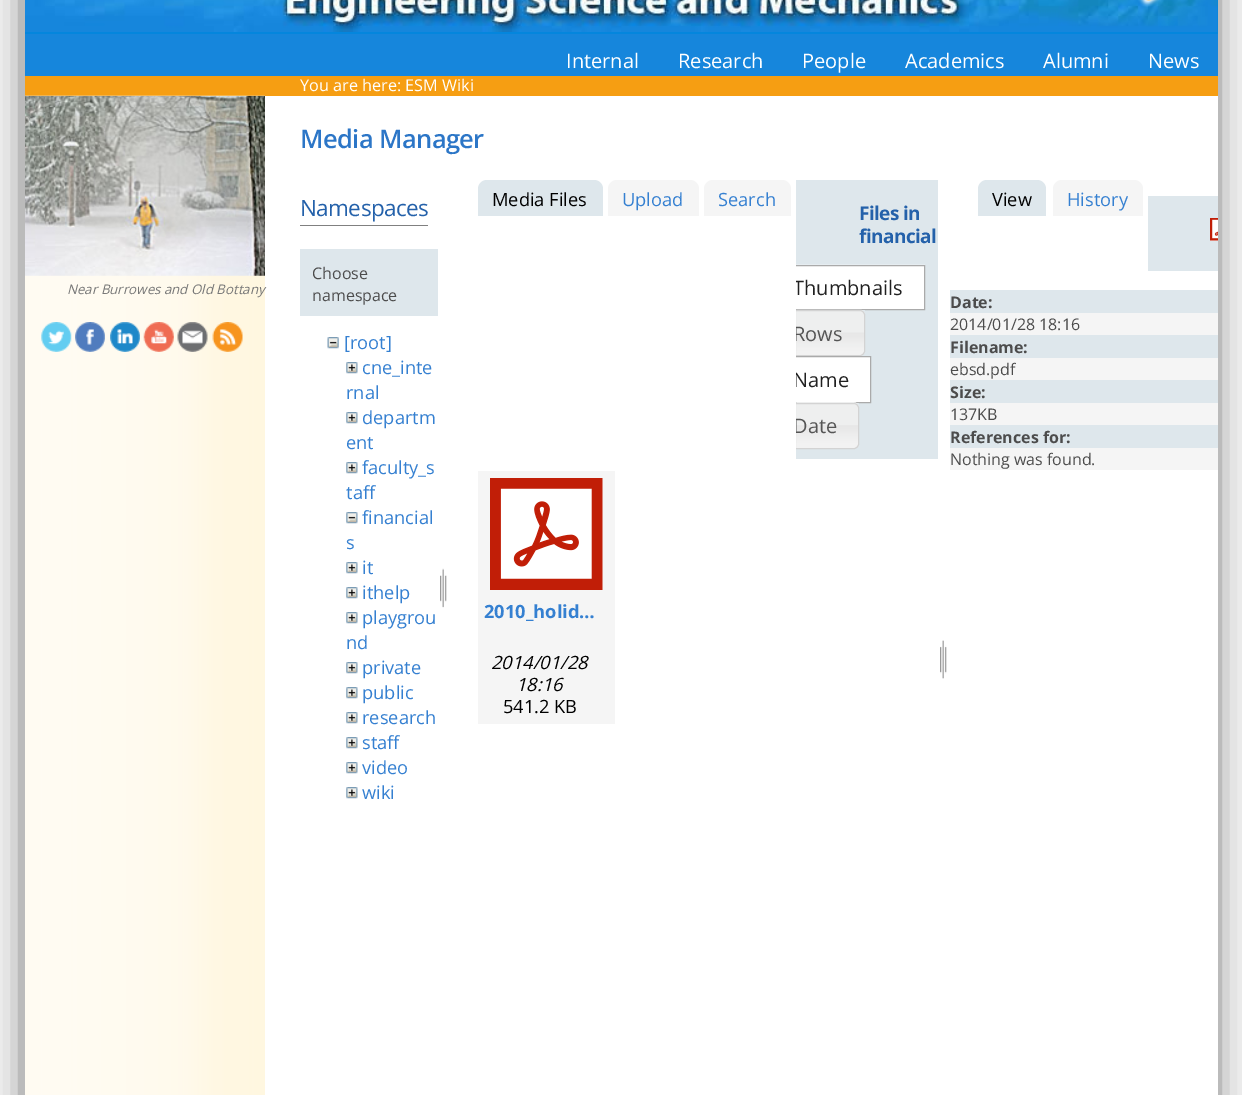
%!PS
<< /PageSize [1242 1095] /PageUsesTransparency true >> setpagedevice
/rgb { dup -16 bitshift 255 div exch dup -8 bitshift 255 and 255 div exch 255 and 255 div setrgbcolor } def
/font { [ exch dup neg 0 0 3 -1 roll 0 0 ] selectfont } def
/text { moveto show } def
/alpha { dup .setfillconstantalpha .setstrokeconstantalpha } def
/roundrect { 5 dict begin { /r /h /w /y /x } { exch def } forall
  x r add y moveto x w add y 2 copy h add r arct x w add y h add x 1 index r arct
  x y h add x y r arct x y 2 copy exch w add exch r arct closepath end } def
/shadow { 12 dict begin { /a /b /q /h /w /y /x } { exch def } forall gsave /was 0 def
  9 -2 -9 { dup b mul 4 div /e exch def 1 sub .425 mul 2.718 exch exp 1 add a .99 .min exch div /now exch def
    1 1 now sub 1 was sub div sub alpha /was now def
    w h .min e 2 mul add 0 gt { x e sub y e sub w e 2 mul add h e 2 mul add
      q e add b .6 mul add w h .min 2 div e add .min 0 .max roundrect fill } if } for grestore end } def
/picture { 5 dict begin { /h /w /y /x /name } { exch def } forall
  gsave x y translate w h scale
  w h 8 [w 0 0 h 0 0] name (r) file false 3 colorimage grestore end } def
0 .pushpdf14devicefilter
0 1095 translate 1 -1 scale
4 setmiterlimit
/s1 { /OpenSans-Regular 20 font 16#FFFFFF rgb } def
/s2 { /OpenSans-Regular 16.25 font 16#FFFFFF rgb } def
/s3 { /OpenSans-Italic 13.3 font 16#777777 rgb } def
/s4 { /OpenSans-Regular 16 font 16#4C4C4C rgb } def
/s5 { /OpenSans-Regular 18.25 font 16#3580D1 rgb } def
/s6 { /OpenSans-Regular 18.25 font 16#000000 rgb } def
/s7 { /OpenSans-Regular 20 font 16#212121 rgb } def
/s8 { /OpenSans-Regular 20 font 16#555555 rgb } def
/s9 { /OpenSans-Bold 18.25 font 16#3580D1 rgb } def
/s10 { /OpenSans-Italic 18.25 font 16#000000 rgb } def
/s11 { /OpenSans-Bold 16 font 16#4C4C4C rgb } def
16#F1F1F1 rgb
0 0 1242 1095 rectfill
16#000000 rgb
29 -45 1182 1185 0 15 0.75 shadow
16#FFFFFF rgb
265 96 953 999 rectfill
16#0486DD rgb
25 0 1193 34 rectfill
(pic1.raw) 25 0 1193 32 picture
(pic2.raw) 1139 0 22 7 picture
16#1686DC rgb
25 34 1193 42 rectfill
s1
(Internal) 566 68 text
(Research) 678 68 text
(People) 802 68 text
(Academics) 905 68 text
(Alumni) 1043 68 text
(News) 1148 68 text
16#F69E12 rgb
25 76 1193 20 rectfill
s2
(You are here: ESM Wiki) 300 91 text
(pic3.raw) 25 95 240 1000 picture
(pic4.raw) 25 95 240 181 picture
s3
(Near Burrowes and Old Bottany) 67 294 text
(pic5.raw) 41 322 31 30 picture
(pic6.raw) 75 322 30 30 picture
(pic7.raw) 110 322 30 30 picture
(pic8.raw) 143 322 31 30 picture
(pic9.raw) 177 322 31 30 picture
(pic10.raw) 212 322 31 30 picture
/OpenSans-SemiBold 25.5 font
16#2C76C7 rgb
300 148 moveto -0.6 0 (Media Manager) ashow
16#808080 rgb
300 225 128 1 rectfill
/OpenSans-Regular 22.5 font
16#2461AA rgb
300 216 moveto -0.6 0 (Namespaces) ashow
16#DEE7EC rgb
300 249 138 67 rectfill
s4
(Choose) 312 279 text
(namespace) 312 301 text
(pic11.raw) 327 337 12 12 picture
s5
([root]) 344 349 text
(cne_inte) 362 374 text
(rnal) 346 399 text
(pic12.raw) 346 362 12 12 picture
(departm) 362 424 text
(ent) 346 449 text
(pic12.raw) 346 412 12 12 picture
(faculty_s) 362 474 text
(taff) 346 499 text
(pic12.raw) 346 462 12 12 picture
(financial) 362 524 text
(s) 346 549 text
(pic13.raw) 346 512 12 12 picture
(pic12.raw) 346 562 12 12 picture
(it) 362 574 text
(pic12.raw) 346 587 12 12 picture
(ithelp) 362 599 text
(playgrou) 362 624 text
(nd) 346 649 text
(pic12.raw) 346 612 12 12 picture
(pic12.raw) 346 662 12 12 picture
(private) 362 674 text
(pic14.raw) 346 687 12 12 picture
(public) 362 699 text
(pic12.raw) 346 712 12 12 picture
(research) 362 724 text
(pic12.raw) 346 737 12 12 picture
(staff) 362 749 text
(pic12.raw) 346 762 12 12 picture
(video) 362 774 text
(pic12.raw) 346 787 12 12 picture
(wiki) 362 799 text
(pic15.raw) 440 568 7 40 picture
16#DEE7EC rgb
487 180 moveto 594 180 lineto 599 180 603 184 603 189 curveto 603 216 lineto 478 216 lineto 478 189 lineto 478 184 482 180 487 180 curveto closepath fill
s6
(Media Files) 492 206 text
16#F5F5F5 rgb
617 180 moveto 690 180 lineto 695 180 699 184 699 189 curveto 699 216 lineto 608 216 lineto 608 189 lineto 608 184 612 180 617 180 curveto closepath fill
s5
(Upload) 622 206 text
16#F5F5F5 rgb
713 180 moveto 782 180 lineto 787 180 791 184 791 189 curveto 791 216 lineto 704 216 lineto 704 189 lineto 704 184 708 180 713 180 curveto closepath fill
s5
(Search) 718 206 text
16#DEE7EC rgb
796 180 142 279 rectfill
/OpenSans-Bold 19 font
16#2461AA rgb
859 220 moveto -0.6 0 (Files in) ashow
859 243 moveto -0.6 0 (financial) ashow
16#FFFFFF rgb
796 266 128 43 rectfill
(pic16.raw) 796 264 129 1 picture
gsave
796 180 142 279 rectclip
16#AAAAAA rgb
776 265.5 moveto 924.5 265.5 lineto 924.5 309.5 lineto 776 309.5 lineto 773.5 309.5 771.5 307.5 771.5 305 curveto 771.5 270 lineto 771.5 267.5 773.5 265.5 776 265.5 curveto closepath stroke
s7
(Thumbnails) 793 295 text
grestore
(pic17.raw) 796 309 69 47 picture
gsave
796 180 142 279 rectclip
16#D3D3D3 rgb
771.5 310.5 moveto 860 310.5 lineto 862.5 310.5 864.5 312.5 864.5 315 curveto 864.5 351 lineto 864.5 353.5 862.5 355.5 860 355.5 curveto 771.5 355.5 lineto closepath stroke
s8
(Rows) 793 341 text
grestore
796 357 74 45 rectfill
gsave
796 180 142 279 rectclip
16#AAAAAA rgb
776 356.5 moveto 870.5 356.5 lineto 870.5 402.5 lineto 776 402.5 lineto 773.5 402.5 771.5 400.5 771.5 398 curveto 771.5 361 lineto 771.5 358.5 773.5 356.5 776 356.5 curveto closepath stroke
s7
(Name) 793 387 text
grestore
(pic18.raw) 796 402 63 46 picture
gsave
796 180 142 279 rectclip
16#D3D3D3 rgb
771.5 403.5 moveto 854 403.5 lineto 856.5 403.5 858.5 405.5 858.5 408 curveto 858.5 444 lineto 858.5 446.5 856.5 448.5 854 448.5 curveto 771.5 448.5 lineto closepath stroke
s8
(Date) 793 433 text
grestore
16#F5F5F5 rgb
478 471 137 253 rectfill
(pic19.raw) 490 478 113 112 picture
s9
(2010_holid…) 484 618 text
s10
(2014/01/28) 491 669 text
(18:16) 516 691 text
s6
(541.2 KB) 503 713 text
(pic20.raw) 940 640 7 39 picture
16#DEE7EC rgb
987 180 moveto 1037 180 lineto 1042 180 1046 184 1046 189 curveto 1046 216 lineto 978 216 lineto 978 189 lineto 978 184 982 180 987 180 curveto closepath fill
s6
(View) 992 206 text
16#F5F5F5 rgb
1062 180 moveto 1134 180 lineto 1139 180 1143 184 1143 189 curveto 1143 216 lineto 1053 216 lineto 1053 189 lineto 1053 184 1057 180 1062 180 curveto closepath fill
s5
(History) 1067 206 text
16#DEE7EC rgb
1148 196 70 75 rectfill
(pic21.raw) 1210 218 8 23 picture
950 290 268 23 rectfill
s11
(Date:) 950 308 text
16#F5F5F5 rgb
950 313 268 22 rectfill
s4
(2014/01/28 18:16) 950 330 text
16#DEE7EC rgb
950 335 268 23 rectfill
s11
(Filename:) 950 353 text
16#F5F5F5 rgb
950 358 268 22 rectfill
s4
(ebsd.pdf) 950 375 text
16#DEE7EC rgb
950 380 268 23 rectfill
s11
(Size:) 950 398 text
16#F5F5F5 rgb
950 403 268 22 rectfill
s4
(137KB) 950 420 text
16#DEE7EC rgb
950 425 268 23 rectfill
s11
(References for:) 950 443 text
16#F5F5F5 rgb
950 448 268 22 rectfill
s4
(Nothing was found.) 950 465 text
.poppdf14devicefilter showpage
